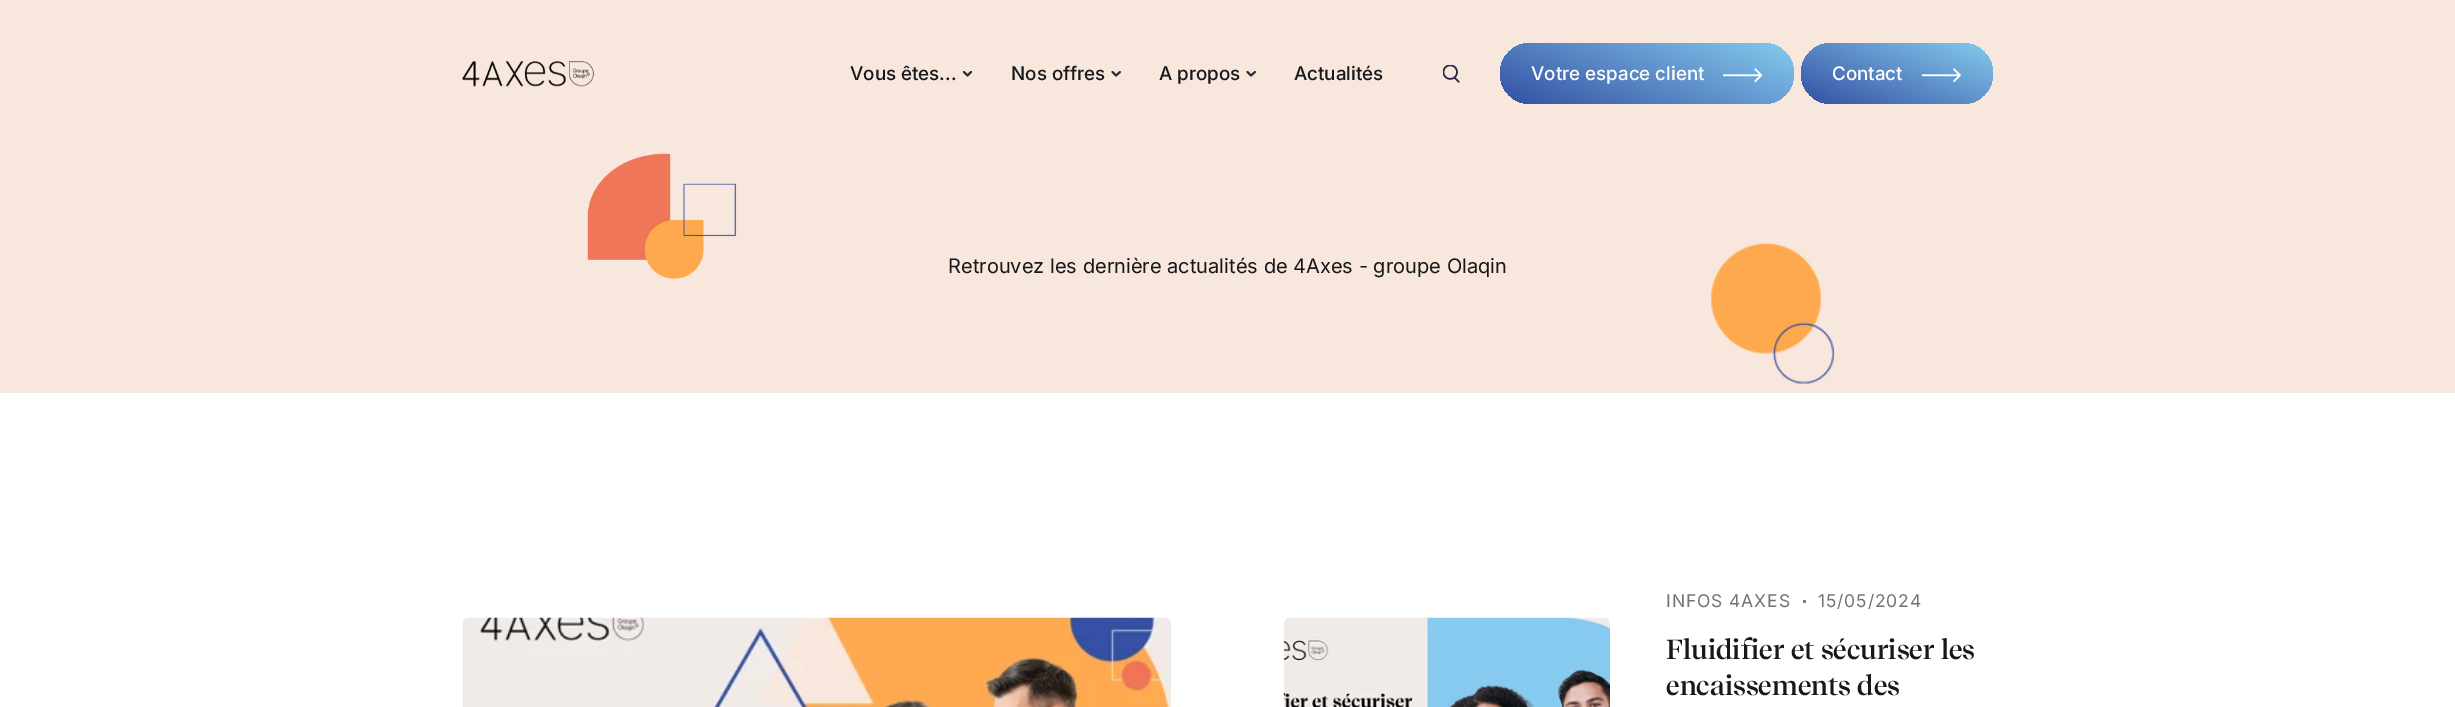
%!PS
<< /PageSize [2455 707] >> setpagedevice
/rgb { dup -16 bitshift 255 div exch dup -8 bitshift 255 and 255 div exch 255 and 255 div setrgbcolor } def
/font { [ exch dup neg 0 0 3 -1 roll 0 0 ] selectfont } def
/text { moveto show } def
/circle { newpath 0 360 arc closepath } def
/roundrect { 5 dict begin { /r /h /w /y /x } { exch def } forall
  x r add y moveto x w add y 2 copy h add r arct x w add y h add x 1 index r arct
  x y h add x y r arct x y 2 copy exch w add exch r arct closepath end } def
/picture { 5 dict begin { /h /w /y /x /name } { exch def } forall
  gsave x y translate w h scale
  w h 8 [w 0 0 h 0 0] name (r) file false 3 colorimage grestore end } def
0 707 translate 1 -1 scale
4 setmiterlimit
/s1 { /Inter-Medium 18.75 font 16#17181A rgb } def
/s2 { /Inter-Medium 18.75 font 16#FFFFFF rgb } def
/s3 { /Inter-Regular 20 font 16#17181A rgb } def
/s4 { /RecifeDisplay-SemiBold 27.5 font 16#17181A rgb } def
16#FFFFFF rgb
0 0 2455 707 rectfill
16#F7E7DC rgb
0 0 2455 393 rectfill
(pic1.raw) 462 61 132 26 picture
s1
(Vous êtes...) 850 80 text
16#282844 rgb
1.9 setlinewidth
1 setlinecap
1 setlinejoin
964 72 moveto 967.5 75.5 lineto 971 72 lineto stroke
s1
(Nos offres) 1011 80 text
16#282844 rgb
1112.5 72 moveto 1116 75.5 lineto 1120 72 lineto stroke
s1
(A propos) 1159 80 text
16#282844 rgb
1247.5 72 moveto 1251 75.5 lineto 1255 72 lineto stroke
s1
(Actualités) 1294 80 text
(pic2.raw) 1443 65 17 18 picture
gsave 1500 43 294 61 30.5 roundrect clip newpath
<< /ShadingType 2 /ColorSpace /DeviceRGB /Coords [1678 -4.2 1616 150] /Extend [true true] /Function << /FunctionType 2 /Domain [0 1] /C0 [0.522 0.796 0.933] /C1 [0.204 0.314 0.639] /N 1 >> >> shfill grestore
s2
(Votre espace client) 1531 80 text
(pic3.raw) 1723 68 40 15 picture
gsave 1801 43 192 61 30.5 roundrect clip newpath
<< /ShadingType 2 /ColorSpace /DeviceRGB /Coords [1921 14 1873 133] /Extend [true true] /Function << /FunctionType 2 /Domain [0 1] /C0 [0.522 0.796 0.933] /C1 [0.204 0.314 0.639] /N 1 >> >> shfill grestore
(Contact) 1832 80 text
(pic4.raw) 1921 68 40 15 picture
(pic5.raw) 587 153 150 126 picture
s3
(Retrouvez les dernière actualités de 4Axes - groupe Olaqin) 948 273 text
(pic6.raw) 1711 243 124 141 picture
(pic7.raw) 462 617 709 90 picture
(pic8.raw) 1283 617 327 90 picture
/Inter-Regular 17.5 font
16#747476 rgb
1666 607 moveto 0.9 0 (INFOS 4AXES) ashow
1804.5 601.5 1.5 circle fill
1818 607 moveto 0.9 0 (15/05/2024) ashow
s4
(Fluidifier et sécuriser les) 1666 659 text
(encaissements des) 1666 695 text
showpage
